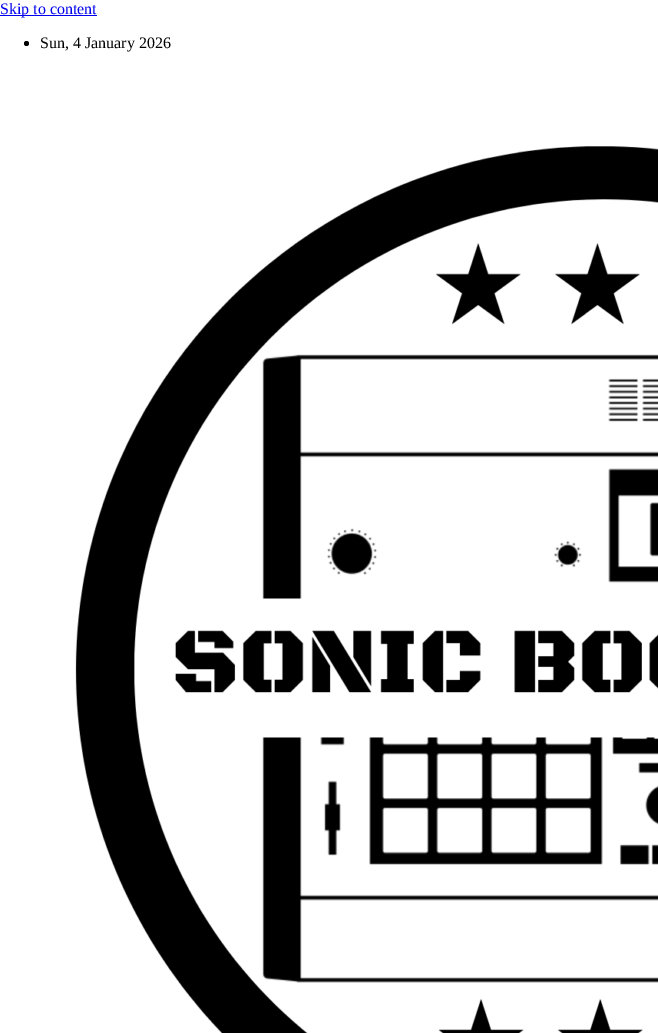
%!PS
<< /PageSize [658 1033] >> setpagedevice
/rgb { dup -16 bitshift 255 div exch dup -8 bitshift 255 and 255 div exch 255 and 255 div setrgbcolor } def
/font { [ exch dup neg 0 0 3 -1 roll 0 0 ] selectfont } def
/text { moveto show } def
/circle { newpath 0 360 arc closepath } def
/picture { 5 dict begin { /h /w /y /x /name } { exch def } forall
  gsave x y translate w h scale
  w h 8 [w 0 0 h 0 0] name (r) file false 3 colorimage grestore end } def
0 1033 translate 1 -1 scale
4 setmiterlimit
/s1 { /LiberationSerif-Regular 16 font 16#0000EE rgb } def
/s2 { /LiberationSerif-Regular 16 font 16#000000 rgb } def
16#FFFFFF rgb
0 0 658 1033 rectfill
16#0000EE rgb
0 15 97 1 rectfill
s1
(Skip to content) 0 14 text
16#000000 rgb
26.5 43.5 2.5 circle fill
(Sun, 4 January 2026) 40 48 text
(pic1.raw) 75 146 583 887 picture
showpage
